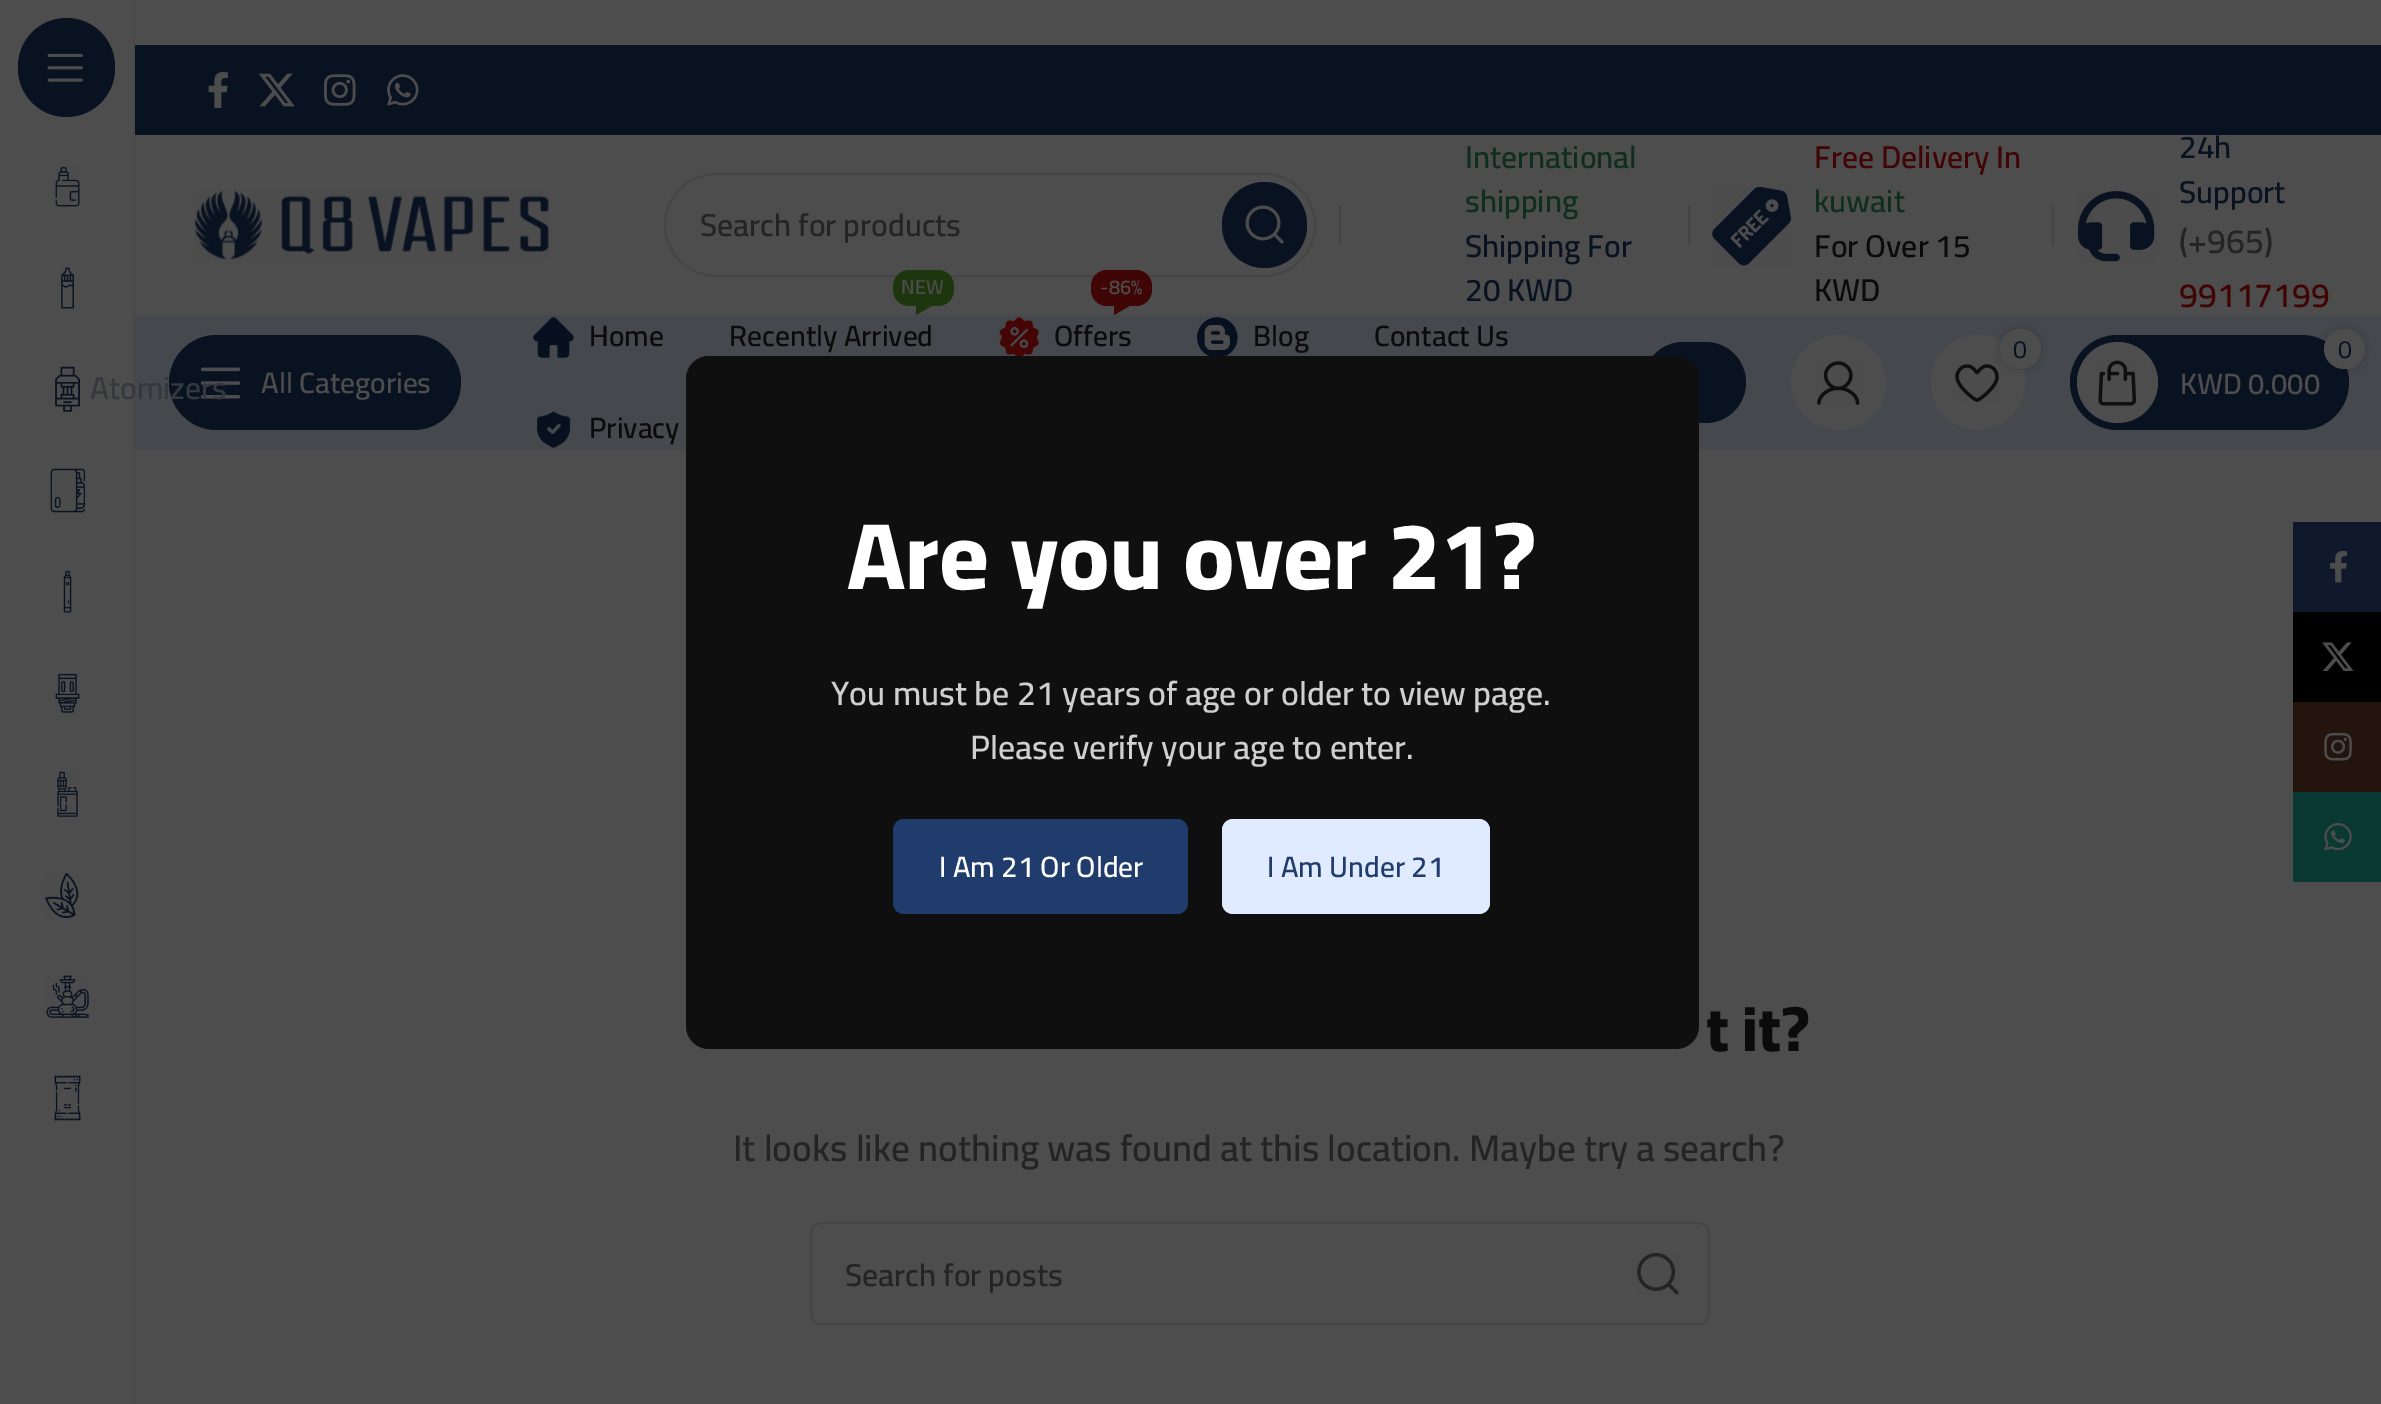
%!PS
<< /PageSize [2381 1404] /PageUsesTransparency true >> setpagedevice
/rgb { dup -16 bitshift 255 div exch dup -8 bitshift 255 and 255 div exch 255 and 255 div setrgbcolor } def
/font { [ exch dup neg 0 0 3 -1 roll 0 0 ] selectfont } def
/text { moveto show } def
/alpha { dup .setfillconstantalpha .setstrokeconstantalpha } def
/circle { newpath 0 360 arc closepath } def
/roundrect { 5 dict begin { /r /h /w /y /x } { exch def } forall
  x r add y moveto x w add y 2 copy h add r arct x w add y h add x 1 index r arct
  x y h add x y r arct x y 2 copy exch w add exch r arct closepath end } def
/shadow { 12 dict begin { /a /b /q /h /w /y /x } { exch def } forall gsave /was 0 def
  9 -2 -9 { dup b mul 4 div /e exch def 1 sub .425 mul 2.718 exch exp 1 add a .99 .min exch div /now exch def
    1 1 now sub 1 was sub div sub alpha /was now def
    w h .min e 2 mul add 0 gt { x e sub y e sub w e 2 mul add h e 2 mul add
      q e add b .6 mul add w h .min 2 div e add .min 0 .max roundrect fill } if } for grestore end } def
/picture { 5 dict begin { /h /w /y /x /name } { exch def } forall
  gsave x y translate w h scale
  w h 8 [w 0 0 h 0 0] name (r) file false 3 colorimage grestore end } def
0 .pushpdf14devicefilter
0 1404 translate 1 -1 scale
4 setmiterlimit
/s1 { /Cairo-SemiBold 31.5 font 16#35383E rgb } def
/s2 { /Cairo-SemiBold 31.5 font 16#242424 rgb } def
/s3 { /Cairo-SemiBold 31.5 font 16#0F2E1F rgb } def
/s4 { /Cairo-SemiBold 31.5 font 16#091221 rgb } def
/s5 { /Cairo-SemiBold 31.5 font 16#410404 rgb } def
/s6 { /Cairo-SemiBold 31.5 font 16#0B0B0B rgb } def
/s7 { /Cairo-SemiBold 33.75 font 16#242424 rgb } def
/s8 { /Cairo-SemiBold 33.75 font 16#410404 rgb } def
/s9 { /Cairo-SemiBold 29.25 font 16#4D4D4D rgb } def
/s10 { /Cairo-SemiBold 29.25 font 16#0B0B0B rgb } def
/s11 { /Cairo-SemiBold 20 font 16#4D4D4D rgb } def
/s12 { /Cairo-Regular 25 font 16#091221 rgb } def
/s13 { /Cairo-ExtraBold 63 font 16#0B0B0B rgb } def
/s14 { /Cairo-SemiBold 37.1 font 16#242424 rgb } def
/s15 { /Cairo-ExtraBold 94.5 font 16#FFFFFF rgb } def
/s16 { /Cairo-SemiBold 33.75 font 16#CFCFCF rgb } def
/s17 { /Cairo-SemiBold 29.25 font 16#FFFFFF rgb } def
/s18 { /Cairo-SemiBold 29.25 font 16#1F3C6D rgb } def
16#4D4D4D rgb
0 0 2381 1404 rectfill
16#484848 rgb
133 0 2 1404 rectfill
16#091221 rgb
18 18 97 99 48.5 roundrect fill
(pic1.raw) 47 53 36 29 picture
(pic2.raw) 55 166 25 41 picture
(pic3.raw) 61 267 13 42 picture
(pic4.raw) 55 366 25 46 picture
16#45484C rgb
135 315 2246 135 rectfill
16#091221 rgb
169 335 292 95 47.5 roundrect fill
(pic20.raw) 200 367 41 32 picture
s1
(Atomizers) 90 399 text
(pic5.raw) 50 468 36 45 picture
(pic6.raw) 63 570 9 43 picture
(pic7.raw) 55 673 25 40 picture
(pic8.raw) 57 771 21 46 picture
(pic9.raw) 45 873 34 45 picture
(pic10.raw) 46 975 43 43 picture
(pic11.raw) 54 1075 27 46 picture
16#091221 rgb
135 45 2246 90 rectfill
(pic12.raw) 208 72 20 36 picture
(pic13.raw) 258 73 37 34 picture
(pic14.raw) 324 74 32 32 picture
(pic15.raw) 387 74 32 32 picture
(pic16.raw) 194 190 355 70 picture
16#454545 rgb
2 setlinewidth
665 174 650 102 51 roundrect stroke
s2
(Search for products) 700 236 text
16#091221 rgb
1222 182 85 86 42.5 roundrect fill
(pic17.raw) 1245 205 39 39 picture
16#444444 rgb
1339 205 2 40 rectfill
s3
(International) 1465 168 text
(shipping) 1465 212 text
s4
(Shipping For) 1465 257 text
(20 KWD) 1465 301 text
16#444444 rgb
1688 205 2 40 rectfill
(pic18.raw) 1712 187 79 79 picture
s5
(Free Delivery In) 1814 168 text
s3
(kuwait) 1814 212 text
s6
(For Over 15) 1814 257 text
(KWD) 1814 301 text
16#444444 rgb
2052 205 2 40 rectfill
(pic19.raw) 2078 191 77 71 picture
s4
(24h) 2179 158 text
(Support) 2179 203 text
s7
(\(+965\)) 2179 253 text
s8
(99117199) 2179 307 text
s9
(All Categories) 261 393 text
(pic21.raw) 533 317 41 41 picture
s10
(Home) 589 346 text
16#1E360E rgb
893 270 61 36 16 roundrect fill
s11
(NEW) 901 294 text
16#1E360E rgb
916 306 moveto 931.5 306 lineto 916 315 lineto closepath fill
s10
(Recently Arrived) 729 346 text
16#400505 rgb
1091 270 61 36 16 roundrect fill
s11
(-86%) 1100 294 text
16#400505 rgb
1114 306 moveto 1129.5 306 lineto 1114 315 lineto closepath fill
(pic22.raw) 999 317 40 39 picture
s10
(Offers) 1054 346 text
(pic23.raw) 1197 317 41 39 picture
(Blog) 1253 346 text
(Contact Us) 1374 346 text
(pic24.raw) 537 411 34 37 picture
(Privacy) 589 438 text
16#091221 rgb
1643 342 103 81 40.5 roundrect fill
16#4D4D4D rgb
1838.5 382.5 47.5 circle fill
(pic25.raw) 1817 361 43 44 picture
1931 335 94 95 47 roundrect fill
(pic26.raw) 1955 364 44 38 picture
16#000000 rgb
2000 329 41 40 20 4.5 0.17 shadow
16#4D4D4D rgb
2000 329 41 40 20 roundrect fill
s12
(0) 2013 358 text
2070 335 279 95 47.5 roundrect fill
16#4D4D4D rgb
2117.5 382.5 40.5 circle fill
16#000000 rgb
2324 329 41 40 20 4.5 0.17 shadow
16#4D4D4D rgb
2324 329 41 40 20 roundrect fill
s12
(0) 2338 358 text
(pic27.raw) 2098 360 39 46 picture
s9
(KWD 0.000) 2180 394 text
s13
(t it?) 1706 1051 text
s14
(It looks like nothing was found at this location. Maybe try a search?) 733 1161 text
16#454545 rgb
811 1223 898 101 10 roundrect stroke
s2
(Search for posts) 845 1286 text
(pic28.raw) 1637 1253 42 42 picture
16#0F0F0F rgb
686 356 1013 693 23 roundrect fill
s15
(Are you over 21?) 847 589 text
s16
(You must be 21 years of age or older to view page.) 831 705 text
(Please verify your age to enter.) 970 759 text
16#1F3C6D rgb
893 819 295 95 11 roundrect fill
s17
(I Am 21 Or Older) 939 877 text
16#E1EBFF rgb
1222 819 268 95 11 roundrect fill
s18
(I Am Under 21) 1267 877 text
16#10192C rgb
2293 522 88 90 rectfill
(pic29.raw) 2330 551 18 32 picture
16#000000 rgb
2293 612 88 90 rectfill
(pic30.raw) 2322 642 32 29 picture
16#24140E rgb
2293 702 88 90 rectfill
(pic31.raw) 2324 732 28 29 picture
16#093932 rgb
2293 792 88 90 rectfill
(pic32.raw) 2324 823 28 28 picture
.poppdf14devicefilter showpage
